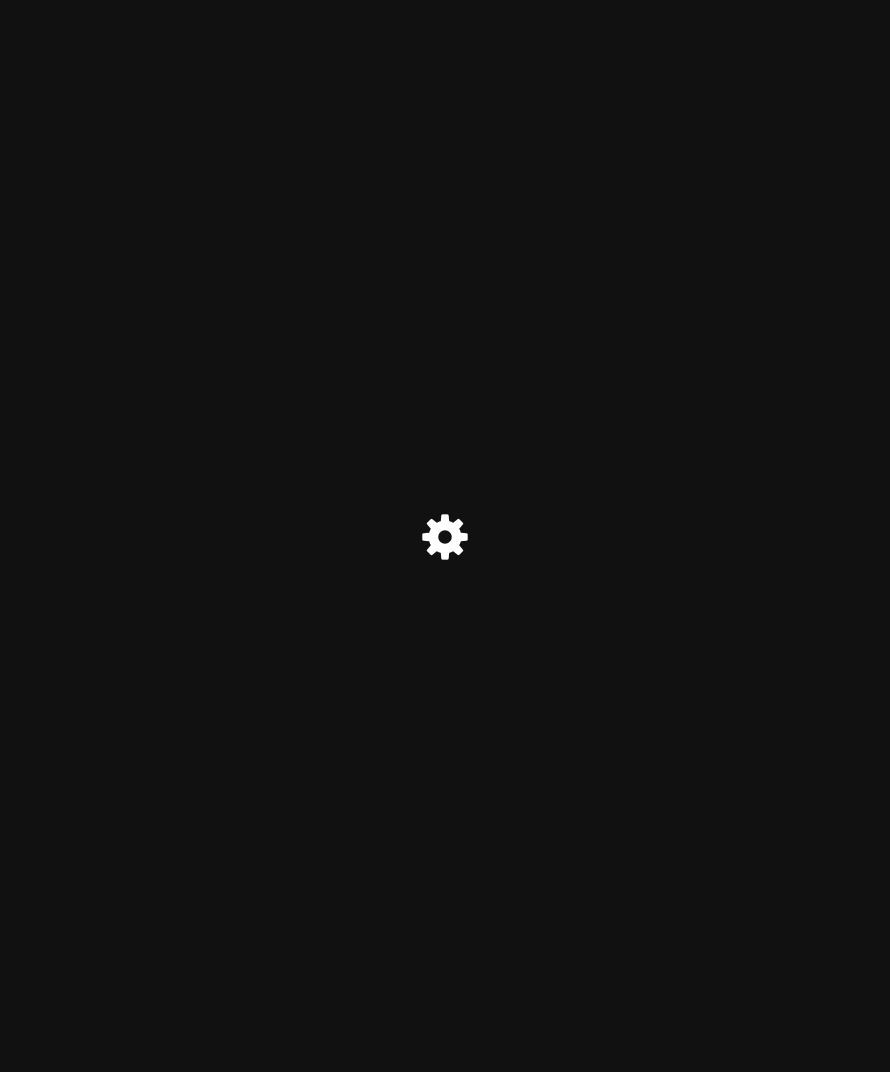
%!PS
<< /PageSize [890 1072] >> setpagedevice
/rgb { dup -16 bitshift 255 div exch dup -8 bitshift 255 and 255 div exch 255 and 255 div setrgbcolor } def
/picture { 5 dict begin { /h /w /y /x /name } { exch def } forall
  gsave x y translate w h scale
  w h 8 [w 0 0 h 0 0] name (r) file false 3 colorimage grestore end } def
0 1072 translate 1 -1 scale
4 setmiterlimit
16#111111 rgb
0 0 890 1072 rectfill
(pic1.raw) 422 514 46 46 picture
showpage
